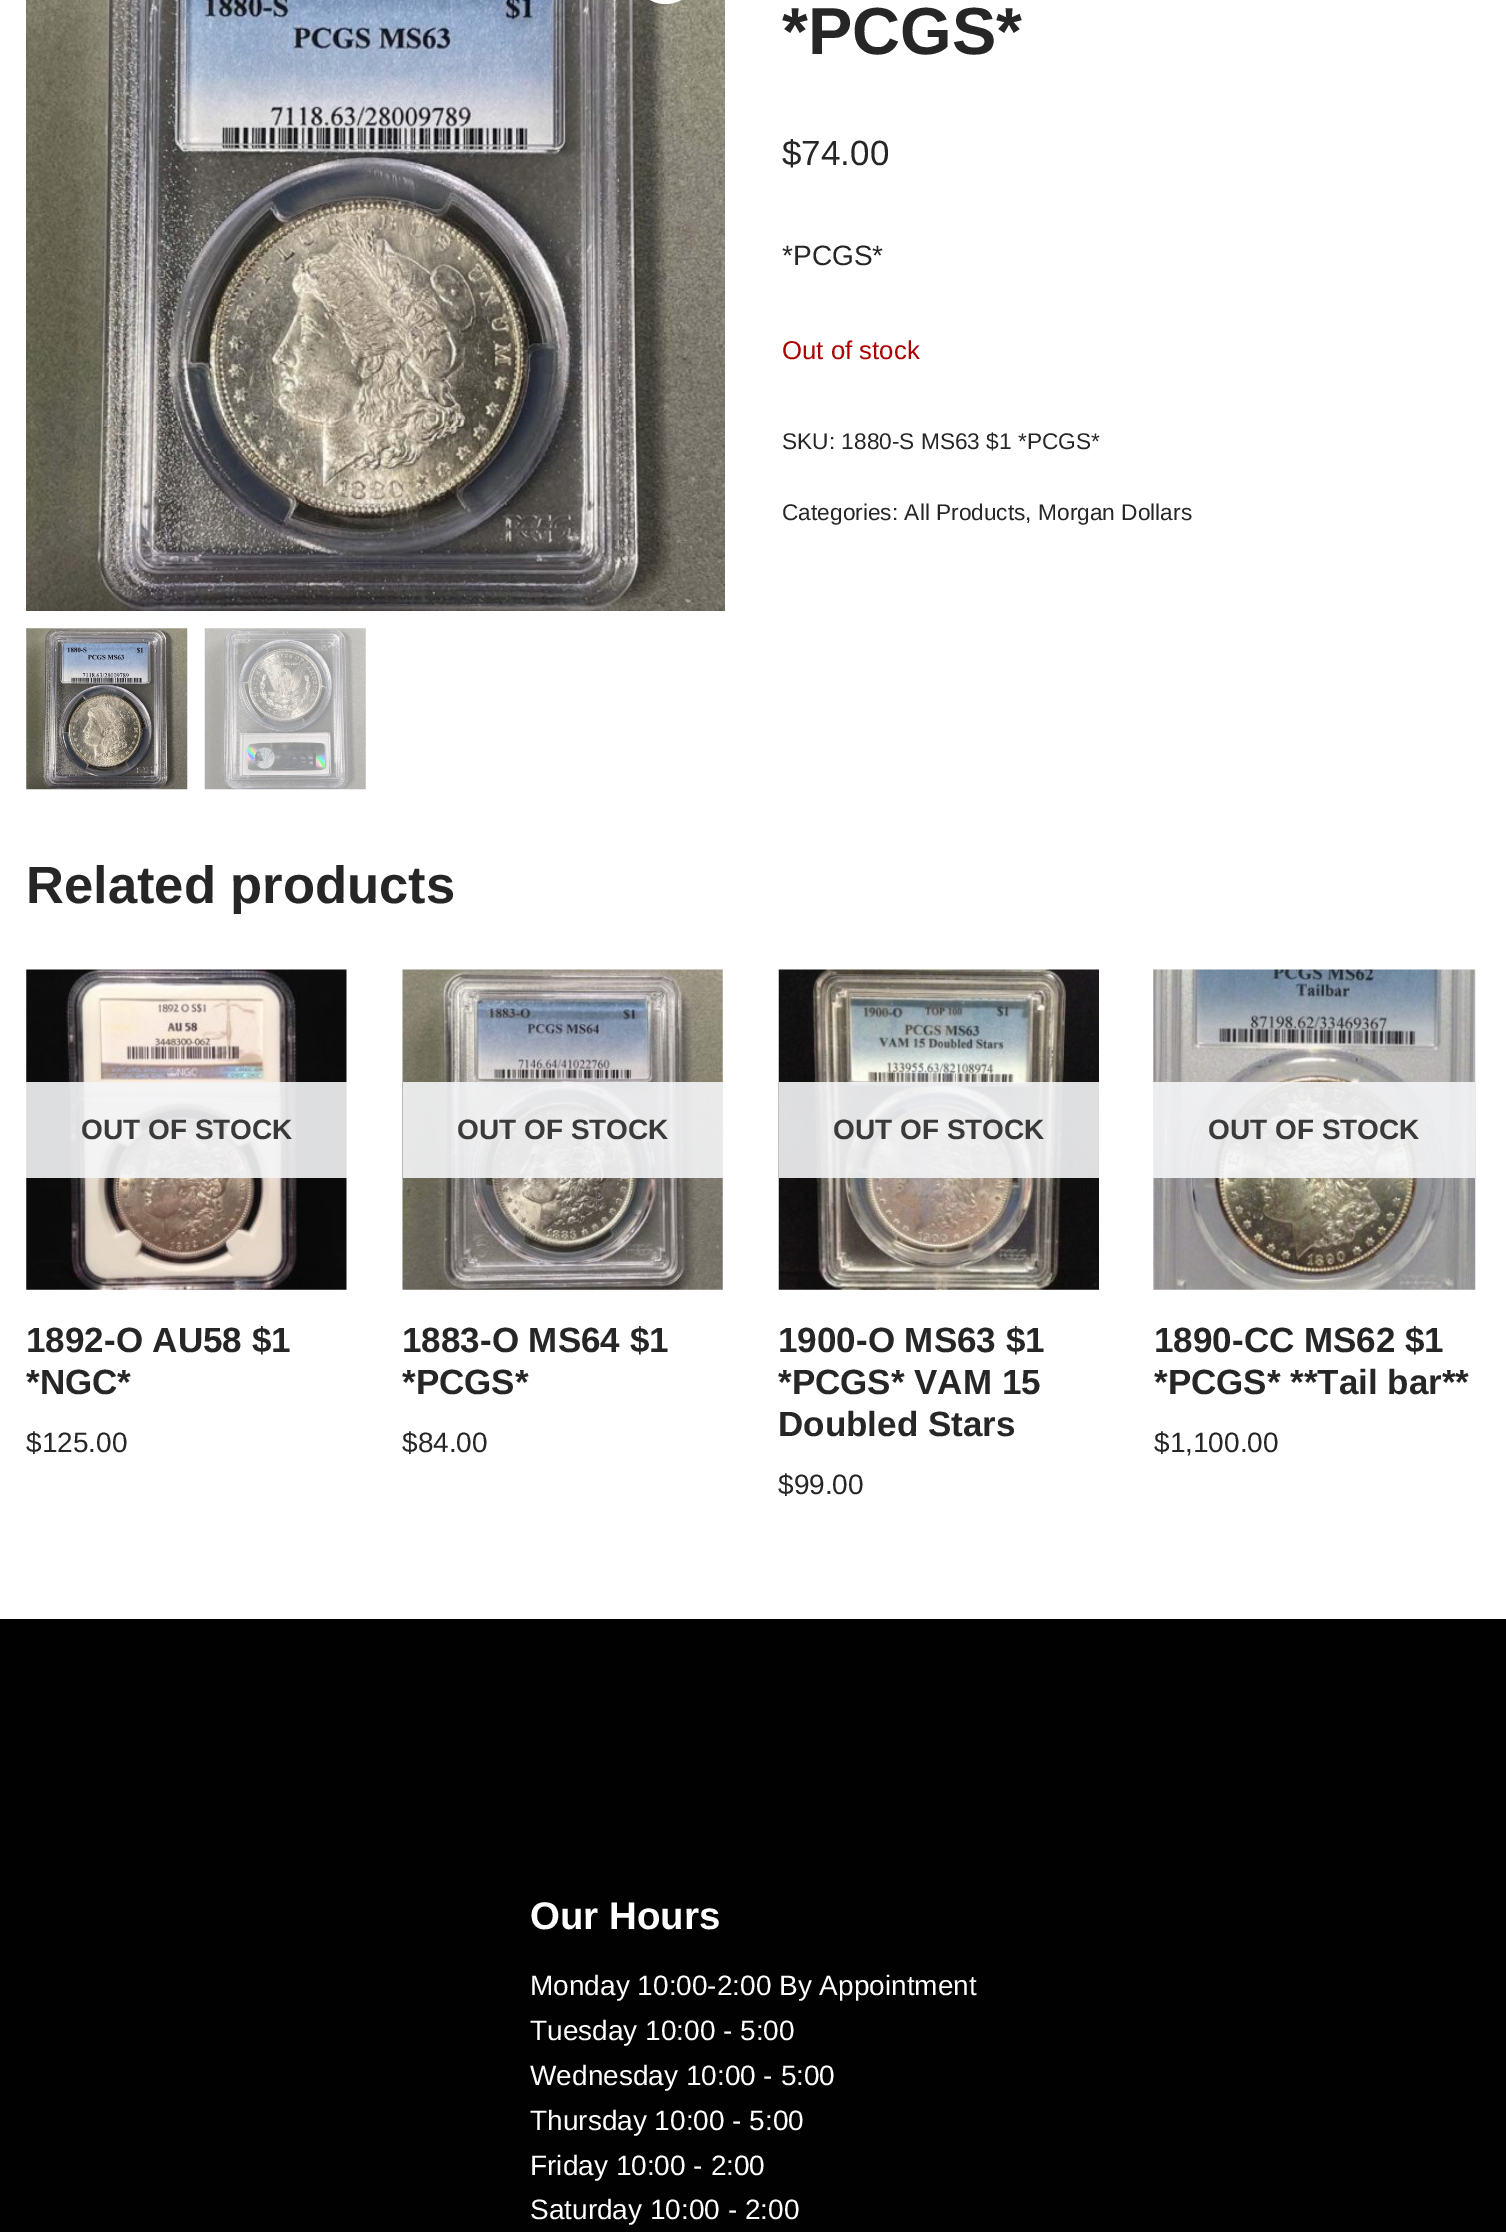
%!PS
<< /PageSize [1506 2232] /PageUsesTransparency true >> setpagedevice
/rgb { dup -16 bitshift 255 div exch dup -8 bitshift 255 and 255 div exch 255 and 255 div setrgbcolor } def
/font { [ exch dup neg 0 0 3 -1 roll 0 0 ] selectfont } def
/text { moveto show } def
/alpha { dup .setfillconstantalpha .setstrokeconstantalpha } def
/roundrect { 5 dict begin { /r /h /w /y /x } { exch def } forall
  x r add y moveto x w add y 2 copy h add r arct x w add y h add x 1 index r arct
  x y h add x y r arct x y 2 copy exch w add exch r arct closepath end } def
/picture { 5 dict begin { /h /w /y /x /name } { exch def } forall
  gsave x y translate w h scale
  w h 8 [w 0 0 h 0 0] name (r) file false 3 colorimage grestore end } def
0 .pushpdf14devicefilter
0 2232 translate 1 -1 scale
4 setmiterlimit
/s1 { /LiberationSans-Bold 66.5 font 16#272626 rgb } def
/s2 { /LiberationSans-Regular 35 font 16#272626 rgb } def
/s3 { /LiberationSans-Regular 28 font 16#272626 rgb } def
/s4 { /LiberationSans-Regular 25.75 font 16#AA0000 rgb } def
/s5 { /LiberationSans-Regular 22.7 font 16#272626 rgb } def
/s6 { /LiberationSans-Bold 52.5 font 16#272626 rgb } def
/s7 { /LiberationSans-Bold 28 font 16#3B3A3A rgb } def
/s8 { /LiberationSans-Bold 35 font 16#272626 rgb } def
/s9 { /LiberationSans-Bold 38.5 font 16#FFFFFF rgb } def
/s10 { /LiberationSans-Regular 28 font 16#FFFFFF rgb } def
16#FFFFFF rgb
0 0 1506 2232 rectfill
(pic1.raw) 26 0 699 611 picture
634 -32 63 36 31.5 roundrect fill
(pic2.raw) 26 628 162 162 picture
(pic3.raw) 204 628 162 162 picture
s1
(*PCGS*) 782 54 text
s2
($74.00) 782 165 text
s3
(*PCGS*) 782 265 text
s4
(Out of stock) 782 359 text
s5
(SKU: 1880-S MS63 $1 *PCGS*) 782 449 text
(Categories: All Products, Morgan Dollars) 782 520 text
s6
(Related products) 26 903 text
(pic4.raw) 26 969 321 321 picture
0.9 alpha
16#F4F5F7 rgb
26 1082 321 96 rectfill
1 alpha
s7
(OUT OF STOCK) 81 1139 text
s8
(1892-O AU58 $1) 26 1352 text
(*NGC*) 26 1394 text
s3
($125.00) 26 1452 text
(pic5.raw) 402 969 321 321 picture
0.9 alpha
16#F4F5F7 rgb
403 1082 320 96 rectfill
1 alpha
s7
(OUT OF STOCK) 457 1139 text
s8
(1883-O MS64 $1) 402 1352 text
(*PCGS*) 402 1394 text
s3
($84.00) 402 1452 text
(pic6.raw) 778 969 321 321 picture
0.9 alpha
16#F4F5F7 rgb
779 1082 320 96 rectfill
1 alpha
s7
(OUT OF STOCK) 833 1139 text
s8
(1900-O MS63 $1) 778 1352 text
(*PCGS* VAM 15) 778 1394 text
(Doubled Stars) 778 1436 text
s3
($99.00) 778 1494 text
(pic7.raw) 1153 969 323 321 picture
0.9 alpha
16#F4F5F7 rgb
1153 1082 322 96 rectfill
1 alpha
s7
(OUT OF STOCK) 1208 1139 text
s8
(1890-CC MS62 $1) 1154 1352 text
(*PCGS* **Tail bar**) 1154 1394 text
s3
($1,100.00) 1154 1452 text
16#010101 rgb
0 1619 1506 613 rectfill
s9
(Our Hours) 530 1929 text
s10
(Monday 10:00-2:00 By Appointment) 530 1995 text
(Tuesday 10:00 - 5:00) 530 2040 text
(Wednesday 10:00 - 5:00) 530 2085 text
(Thursday 10:00 - 5:00) 530 2130 text
(Friday 10:00 - 2:00) 530 2175 text
(Saturday 10:00 - 2:00) 530 2219 text
.poppdf14devicefilter showpage
